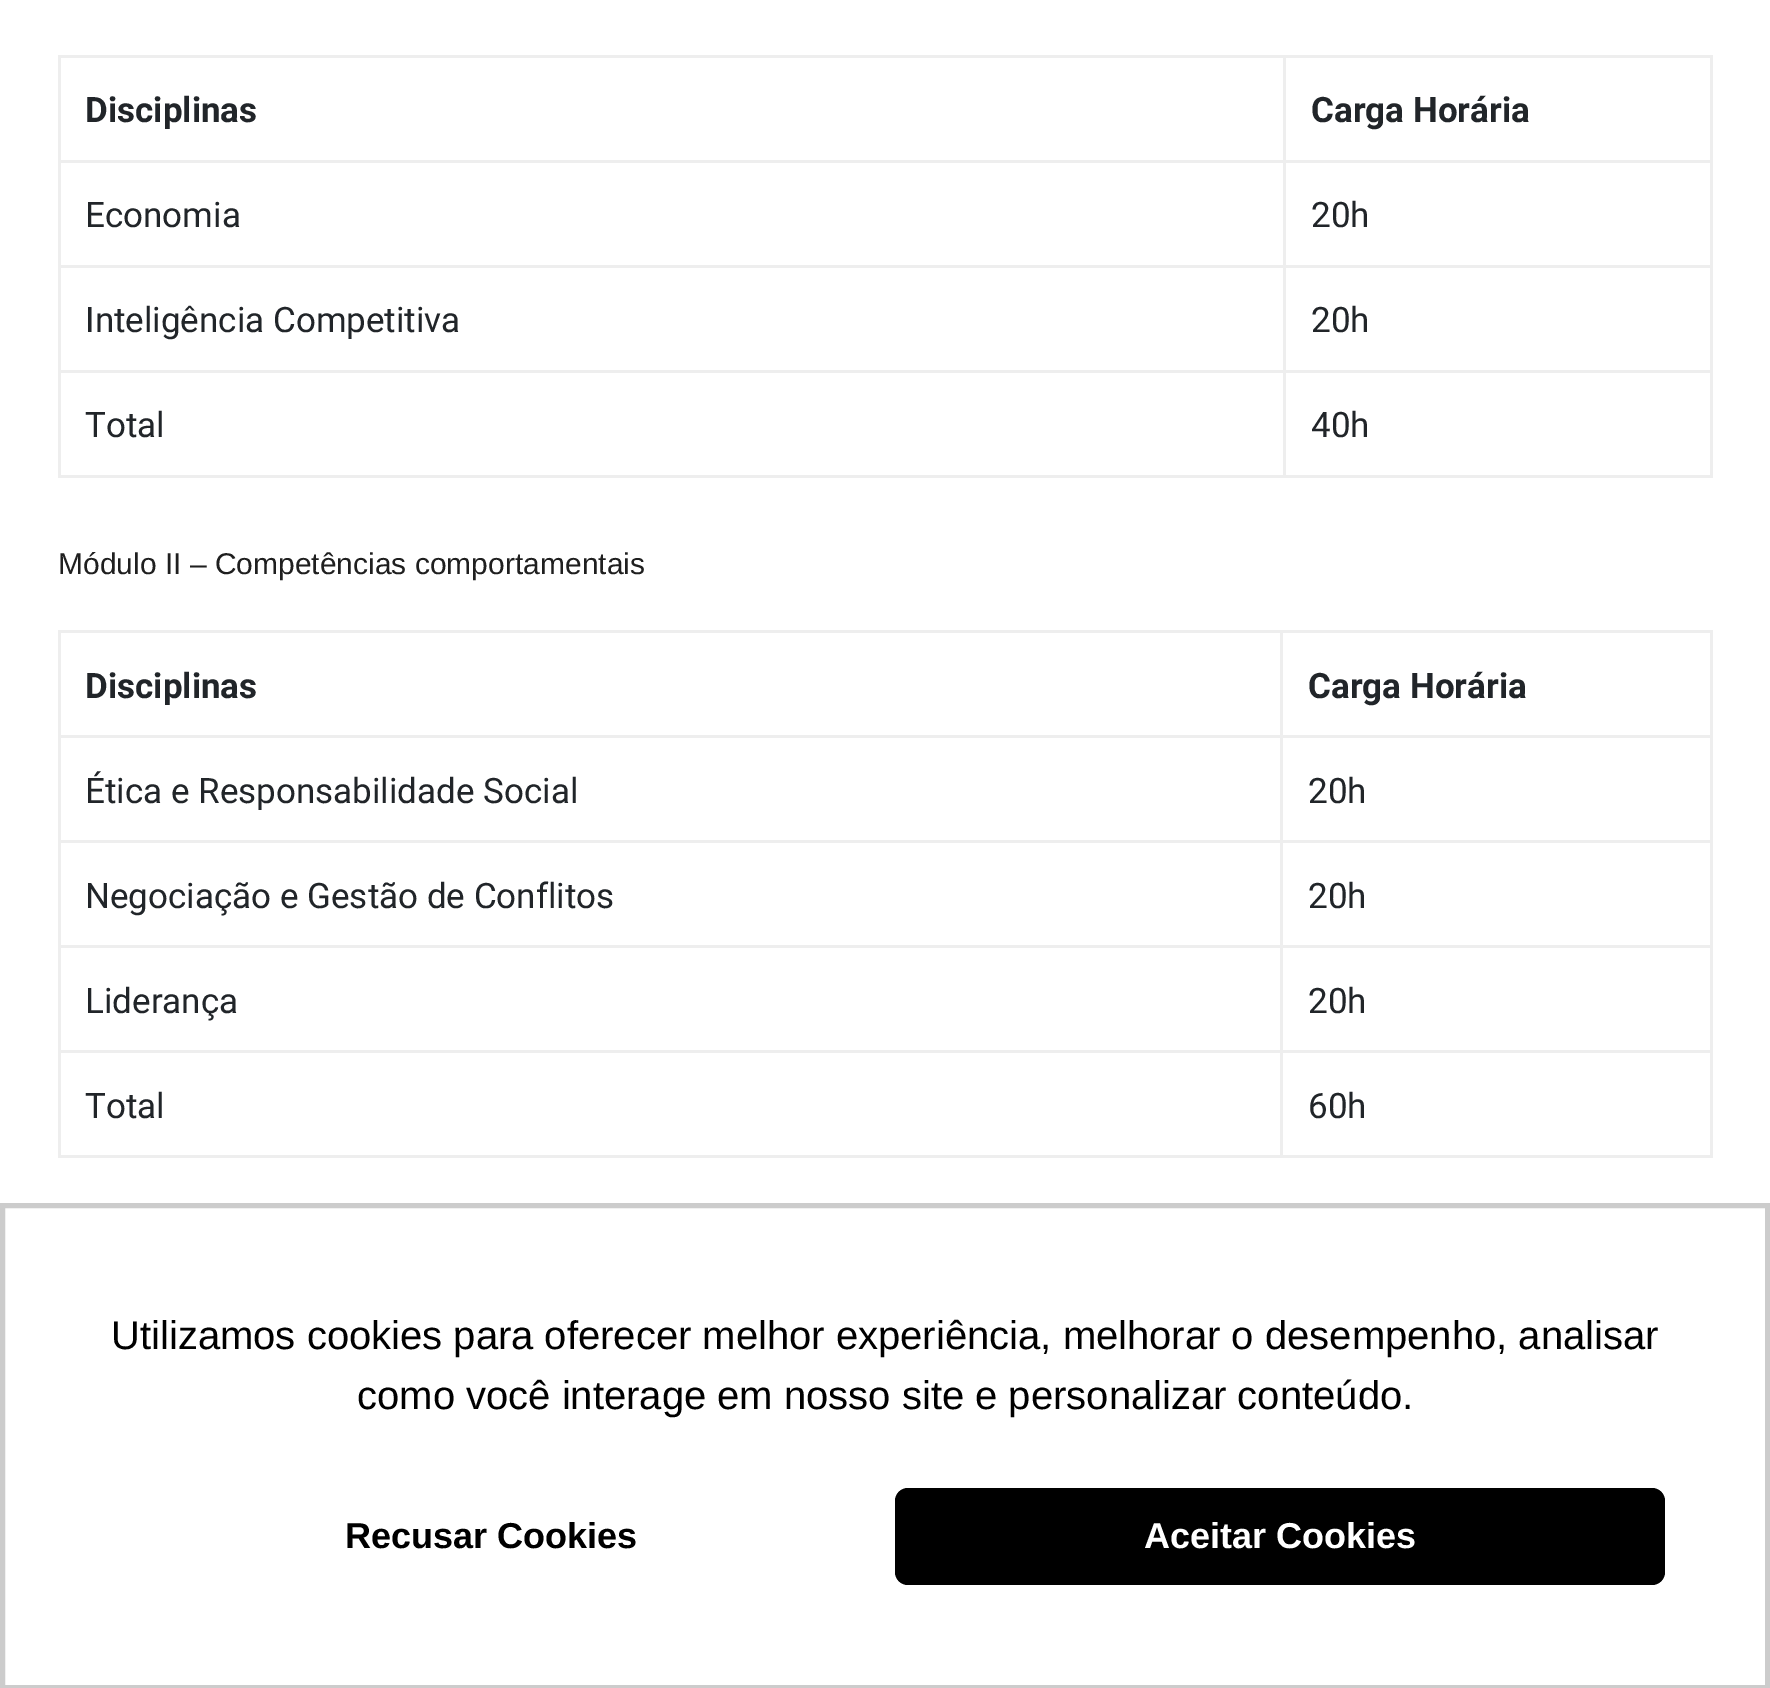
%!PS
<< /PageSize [1770 1688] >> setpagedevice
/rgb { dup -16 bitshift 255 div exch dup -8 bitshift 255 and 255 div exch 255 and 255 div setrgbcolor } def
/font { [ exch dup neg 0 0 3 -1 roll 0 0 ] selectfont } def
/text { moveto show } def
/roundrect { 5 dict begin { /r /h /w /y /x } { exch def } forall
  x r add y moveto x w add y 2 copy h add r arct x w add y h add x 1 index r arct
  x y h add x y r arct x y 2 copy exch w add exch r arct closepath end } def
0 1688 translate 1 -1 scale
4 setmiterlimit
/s1 { /Roboto-Bold 35 font 16#212529 rgb } def
/s2 { /Roboto-Regular 35 font 16#212529 rgb } def
/s3 { /LiberationSans-Regular 30 font 16#1F1F1F rgb } def
/s4 { /LiberationSans-Regular 40 font 16#000000 rgb } def
/s5 { /LiberationSans-Bold 36 font 16#000000 rgb } def
/s6 { /LiberationSans-Bold 36 font 16#FFFFFF rgb } def
16#FFFFFF rgb
0 0 1770 1688 rectfill
16#EEEEEE rgb
58 55 1655 3 rectfill
1710 55 3 423 rectfill
58 475 1655 3 rectfill
58 55 3 423 rectfill
s1
(Disciplinas) 85 122 text
16#EEEEEE rgb
1283 160 427 3 rectfill
1283 265 427 3 rectfill
1283 370 427 3 rectfill
1283 370 3 105 rectfill
60 370 1225 3 rectfill
1283 265 3 108 rectfill
60 265 1225 3 rectfill
1283 160 3 108 rectfill
60 160 1225 3 rectfill
1283 58 3 105 rectfill
s1
(Carga Horária) 1311 122 text
s2
(Economia) 85 227 text
(20h) 1311 227 text
(Inteligência Competitiva) 85 332 text
(20h) 1311 332 text
(Total) 85 437 text
(40h) 1311 437 text
s3
(Módulo II – Competências comportamentais) 58 574 text
16#EEEEEE rgb
58 630 1655 3 rectfill
1710 630 3 528 rectfill
58 1155 1655 3 rectfill
58 630 3 528 rectfill
s1
(Disciplinas) 85 698 text
16#EEEEEE rgb
1280 735 430 3 rectfill
1280 840 430 3 rectfill
1280 945 430 3 rectfill
1280 1050 430 3 rectfill
1280 1050 3 105 rectfill
60 1050 1223 3 rectfill
1280 945 3 108 rectfill
60 945 1223 3 rectfill
1280 840 3 108 rectfill
60 840 1223 3 rectfill
1280 735 3 108 rectfill
60 735 1223 3 rectfill
1280 633 3 105 rectfill
s1
(Carga Horária) 1308 698 text
s2
(Ética e Responsabilidade Social) 85 803 text
(20h) 1308 803 text
(Negociação e Gestão de Conflitos) 85 908 text
(20h) 1308 908 text
(Liderança) 85 1013 text
(20h) 1308 1013 text
(Total) 85 1118 text
(60h) 1308 1118 text
16#CCCCCC rgb
5 setlinewidth
2.5 1205.5 1765 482 rectstroke
s4
(Utilizamos cookies para oferecer melhor experiência, melhorar o desempenho, analisar) 111 1349 text
(como você interage em nosso site e personalizar conteúdo.) 357 1409 text
s5
(Recusar Cookies) 345 1548 text
895 1488 770 97 13 roundrect fill
s6
(Aceitar Cookies) 1144 1548 text
showpage
